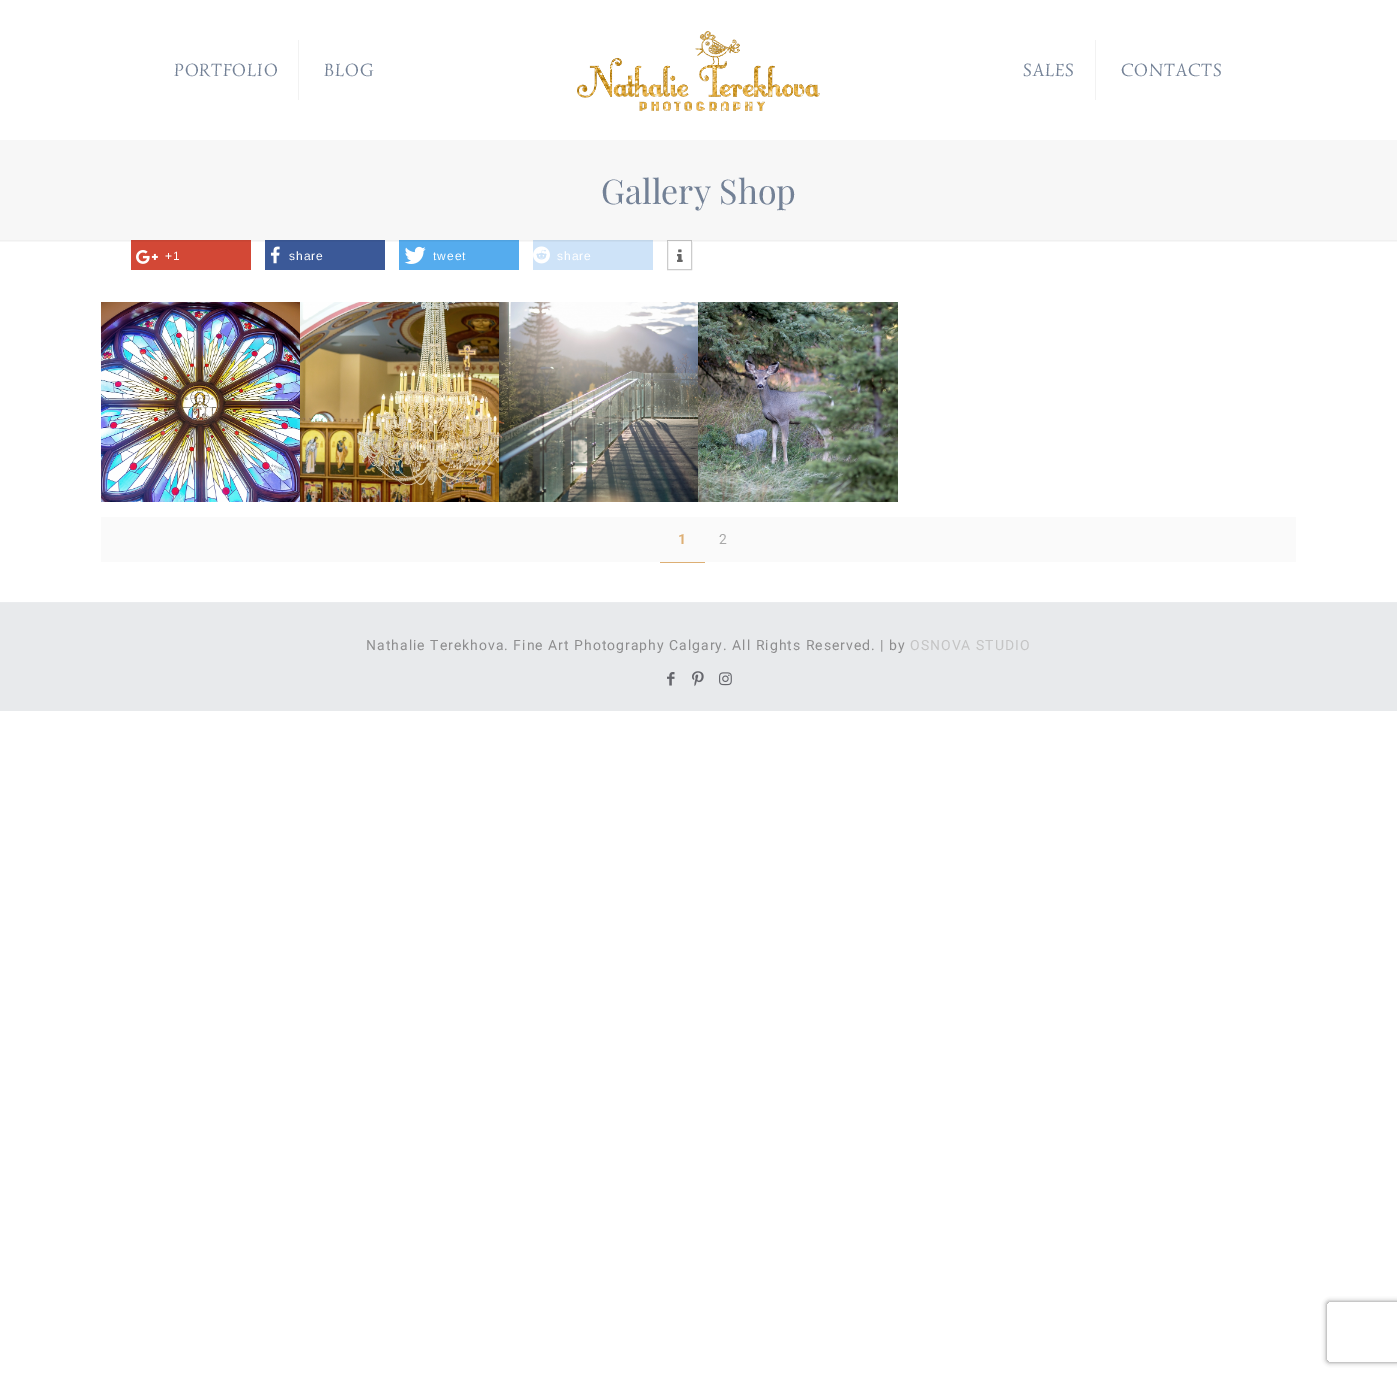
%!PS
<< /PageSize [1397 1376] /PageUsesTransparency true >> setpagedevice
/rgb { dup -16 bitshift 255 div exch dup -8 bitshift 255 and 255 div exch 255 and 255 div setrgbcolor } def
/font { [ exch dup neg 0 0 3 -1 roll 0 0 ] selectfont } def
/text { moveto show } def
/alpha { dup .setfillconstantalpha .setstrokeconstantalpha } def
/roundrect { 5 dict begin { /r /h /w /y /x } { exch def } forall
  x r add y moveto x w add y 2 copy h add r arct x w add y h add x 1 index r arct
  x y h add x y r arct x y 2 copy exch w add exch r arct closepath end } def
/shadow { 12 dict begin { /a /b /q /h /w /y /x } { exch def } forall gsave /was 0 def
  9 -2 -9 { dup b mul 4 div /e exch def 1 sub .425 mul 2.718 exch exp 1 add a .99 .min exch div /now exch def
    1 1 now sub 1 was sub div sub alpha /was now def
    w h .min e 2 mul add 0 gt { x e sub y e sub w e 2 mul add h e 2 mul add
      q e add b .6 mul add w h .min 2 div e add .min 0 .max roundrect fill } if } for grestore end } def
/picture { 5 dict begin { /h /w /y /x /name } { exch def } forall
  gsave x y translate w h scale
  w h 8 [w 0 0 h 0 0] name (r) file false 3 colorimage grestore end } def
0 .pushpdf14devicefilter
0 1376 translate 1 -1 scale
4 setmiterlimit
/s1 { /PlayfairDisplay-Regular 34 font 16#738196 rgb } def
16#FFFFFF rgb
0 0 1397 1376 rectfill
(pic1.raw) 577 31 243 80 picture
16#F2F2F2 rgb
298 40 1 60 rectfill
/Simonetta-Regular 18 font
16#738196 rgb
174 76 moveto 1 0 (PORTFOLIO) ashow
324 76 moveto 1 0 (BLOG) ashow
16#F2F2F2 rgb
1095 40 1 60 rectfill
16#738196 rgb
1023 76 moveto 1 0 (SALES) ashow
1121 76 moveto 1 0 (CONTACTS) ashow
16#F7F7F7 rgb
0 140 1397 100 rectfill
s1
(Gallery Shop) 601 204 text
16#D34836 rgb
131 240 120 30 rectfill
16#3B5998 rgb
265 240 120 30 rectfill
16#55ACEE rgb
399 240 120 30 rectfill
16#CEE3F8 rgb
533 240 120 30 rectfill
16#CCCCCC rgb
667.5 240.5 24 29 rectstroke
(pic2.raw) 0 240 1397 2 picture
(pic3.raw) 136 250 22 14 picture
/LiberationSans-Regular 12 font
16#FFFFFF rgb
165 260 moveto 1 0 (+1) ashow
(pic4.raw) 270 246 10 18 picture
289 260 moveto 1 0 (share) ashow
(pic5.raw) 404 246 22 18 picture
433 260 moveto 1 0 (tweet) ashow
(pic6.raw) 533 246 17 18 picture
557 260 moveto 1 0 (share) ashow
(pic7.raw) 677 249 6 13 picture
(pic8.raw) 101 302 199 200 picture
(pic9.raw) 300 302 199 200 picture
(pic10.raw) 499 302 199 200 picture
(pic11.raw) 698 302 200 200 picture
16#FAFAFA rgb
101 517 1195 45 rectfill
/Roboto-Bold 14 font
16#DDAF74 rgb
678 544 moveto 1 0 (1) ashow
660 562 45 1 rectfill
/Roboto-Regular 14 font
16#A8A8A8 rgb
719 544 moveto 1 0 (2) ashow
16#E8EAEC rgb
0 603 1397 108 rectfill
16#EAECEE rgb
0 602 1397 1 rectfill
16#8D8D8E rgb
366 650 moveto 1 0 (Nathalie Terekhova. Fine Art Photography Calgary. All Rights Reserved. | by) ashow
16#C4C4C4 rgb
910 650 moveto 1 0 (OSNOVA STUDIO) ashow
(pic12.raw) 667 672 8 14 picture
(pic13.raw) 692 671 12 16 picture
(pic14.raw) 719 672 13 14 picture
gsave
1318 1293 moveto 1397 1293 lineto 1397 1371 lineto 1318 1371 lineto closepath 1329 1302 moveto 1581 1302 lineto 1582 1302 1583 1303 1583 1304 curveto 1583 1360 lineto 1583 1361 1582 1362 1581 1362 curveto 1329 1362 lineto 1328 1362 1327 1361 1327 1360 curveto 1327 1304 lineto 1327 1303 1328 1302 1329 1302 curveto closepath eoclip newpath
16#808080 rgb
1327 1302 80 60 2 2.5 1 shadow
grestore
.poppdf14devicefilter showpage
